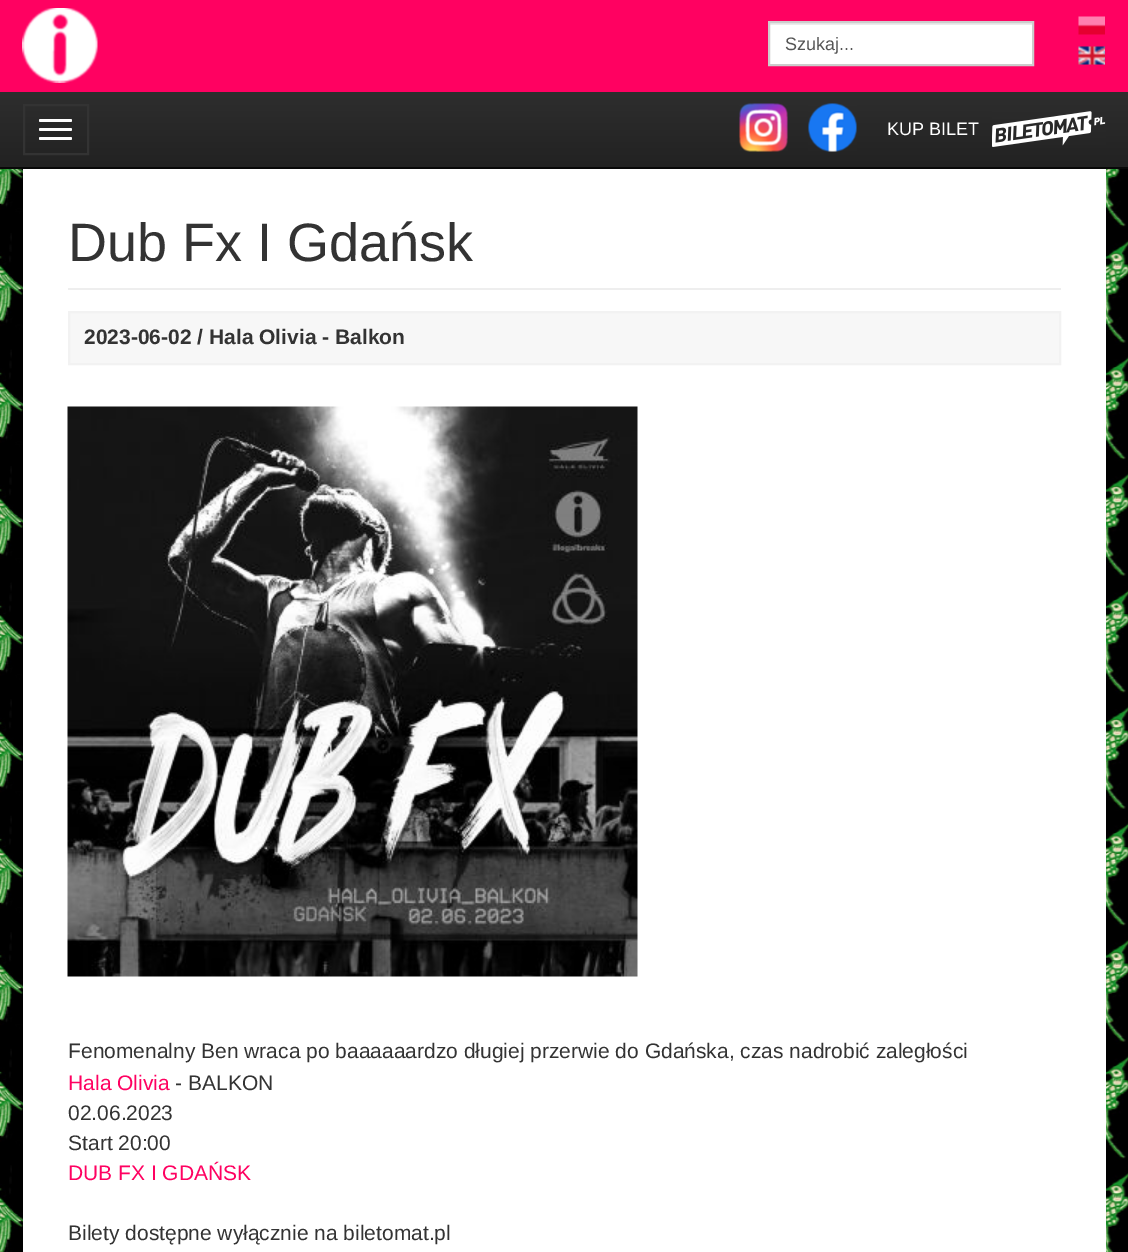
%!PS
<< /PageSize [1128 1252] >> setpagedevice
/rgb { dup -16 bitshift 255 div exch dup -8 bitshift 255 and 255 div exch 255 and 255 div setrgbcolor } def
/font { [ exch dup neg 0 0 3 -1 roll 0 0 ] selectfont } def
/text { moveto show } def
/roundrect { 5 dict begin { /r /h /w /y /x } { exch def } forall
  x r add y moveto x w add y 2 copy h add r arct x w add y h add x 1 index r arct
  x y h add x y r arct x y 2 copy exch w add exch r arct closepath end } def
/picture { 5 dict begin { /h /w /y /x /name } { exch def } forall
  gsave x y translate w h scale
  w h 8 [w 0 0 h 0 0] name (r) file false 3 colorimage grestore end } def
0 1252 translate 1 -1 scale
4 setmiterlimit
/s1 { /LiberationSans-Regular 18 font 16#555555 rgb } def
/s2 { /LiberationSans-Regular 18 font 16#FFFFFF rgb } def
/s3 { /LiberationSans-Regular 54 font 16#333333 rgb } def
/s4 { /LiberationSans-Bold 21 font 16#333333 rgb } def
/s5 { /LiberationSans-Regular 21 font 16#333333 rgb } def
/s6 { /LiberationSans-Regular 21 font 16#FF0161 rgb } def
16#FFFFFF rgb
0 0 1128 1252 rectfill
gsave 0 92 moveto 1128 92 lineto 1128 167 lineto 0 167 lineto closepath clip newpath
<< /ShadingType 2 /ColorSpace /DeviceRGB /Coords [564 0 564 167] /Extend [true true] /Function << /FunctionType 2 /Domain [0 1] /C0 [0.235 0.235 0.235] /C1 [0.133 0.133 0.133] /N 1 >> >> shfill grestore
16#080808 rgb
0 167 1128 2 rectfill
16#FF0161 rgb
0 0 1128 92 rectfill
(pic1.raw) 22 8 76 75 picture
16#FFFFFF rgb
770 25 262 39 rectfill
16#ECECEC rgb
770 23 262 2 rectfill
16#CCCCCC rgb
2 setlinewidth
769 22 264 43 rectstroke
s1
(Szukaj...) 785 50 text
(pic2.raw) 1078 16 27 19 picture
(pic3.raw) 1078 46 27 19 picture
16#333333 rgb
24 105 64 49 rectstroke
16#FFFFFF rgb
39 119 33 3 1.5 roundrect fill
39 128 33 3 1.5 roundrect fill
39 137 33 3 1.5 roundrect fill
(pic4.raw) 739 103 49 49 picture
(pic5.raw) 808 103 49 49 picture
(KUP BILET) 887 135 text
(pic6.raw) 992 111 114 36 picture
(pic7.raw) 0 169 1128 1083 picture
23 169 1083 1083 rectfill
16#EEEEEE rgb
68 288 993 2 rectfill
s3
(Dub Fx I Gdańsk) 68 261 text
16#F7F7F7 rgb
69 312 moveto 1060 312 lineto 1060 364 lineto 69 364 lineto closepath gsave fill grestore
16#F2F2F2 rgb
stroke
s4
(2023-06-02 / Hala Olivia - Balkon) 84 344 text
(pic8.raw) 67 406 571 571 picture
s5
(Fenomenalny Ben wraca po baaaaaardzo długiej przerwie do Gdańska, czas nadrobić zaległości) 68 1058 text
s6
(Hala Olivia) 68 1090 text
s5
(- BALKON) 175 1090 text
(02.06.2023) 68 1120 text
(Start 20:00) 68 1150 text
s6
(DUB FX I GDAŃSK) 68 1180 text
s5
(Bilety dostępne wyłącznie na biletomat.pl) 68 1240 text
showpage
